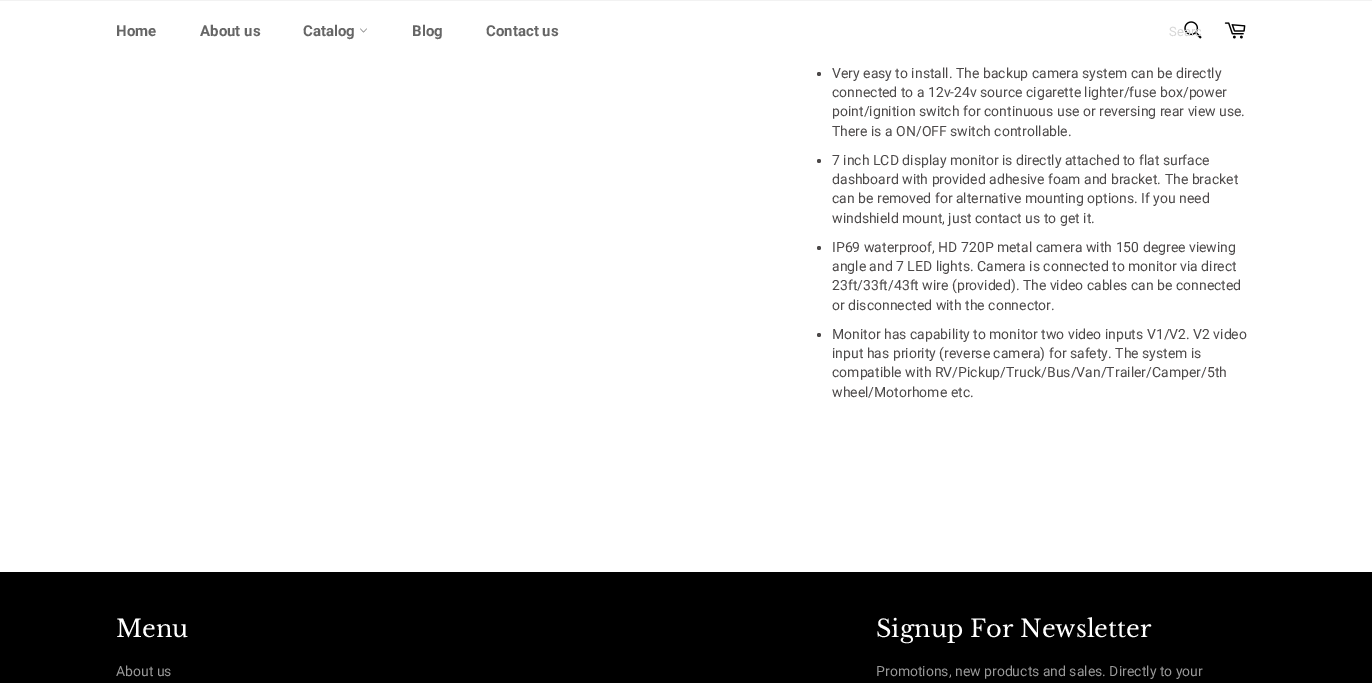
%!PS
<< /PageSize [1372 683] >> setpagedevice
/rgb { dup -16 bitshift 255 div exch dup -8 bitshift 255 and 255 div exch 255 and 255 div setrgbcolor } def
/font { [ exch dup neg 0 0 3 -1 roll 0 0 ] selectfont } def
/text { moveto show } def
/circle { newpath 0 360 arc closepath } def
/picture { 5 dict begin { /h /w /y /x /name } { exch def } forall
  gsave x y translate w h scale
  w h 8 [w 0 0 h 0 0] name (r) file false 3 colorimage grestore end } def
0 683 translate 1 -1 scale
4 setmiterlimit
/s1 { /Roboto-Bold 15 font 16#666666 rgb } def
/s2 { /Roboto-Regular 13 font 16#D7D7D7 rgb } def
/s3 { /Roboto-Regular 14 font 16#4C4949 rgb } def
/s4 { /LibreBaskerville-Regular 24 font 16#FFFFFF rgb } def
/s5 { /Roboto-Regular 14 font 16#999999 rgb } def
16#FFFFFF rgb
0 0 1372 683 rectfill
16#F2F2F2 rgb
0 0 1372 1 rectfill
s1
(Home) 116 36 text
(About us) 200 36 text
(Catalog) 303 36 text
(pic1.raw) 360 28 7 5 picture
(Blog) 412 36 text
(Contact us) 486 36 text
(pic2.raw) 1184 21 18 18 picture
gsave
1169 24 32 15 rectclip
s2
(Searc) 1169 36 text
grestore
(pic3.raw) 1224 22 22 17 picture
16#4C4949 rgb
819 74 2 circle fill
s3
(Very easy to install. The backup camera system can be directly) 832 78 text
(connected to a 12v-24v source cigarette lighter/fuse box/power) 832 97 text
(point/ignition switch for continuous use or reversing rear view use.) 832 116 text
(There is a ON/OFF switch controllable.) 832 136 text
819 161 2 circle fill
(7 inch LCD display monitor is directly attached to flat surface) 832 165 text
(dashboard with provided adhesive foam and bracket. The bracket) 832 184 text
(can be removed for alternative mounting options. If you need) 832 203 text
(windshield mount, just contact us to get it.) 832 223 text
819 248 2 circle fill
(IP69 waterproof, HD 720P metal camera with 150 degree viewing) 832 252 text
(angle and 7 LED lights. Camera is connected to monitor via direct) 832 271 text
(23ft/33ft/43ft wire \(provided\). The video cables can be connected) 832 290 text
(or disconnected with the connector.) 832 310 text
819 335 2 circle fill
(Monitor has capability to monitor two video inputs V1/V2. V2 video) 832 339 text
(input has priority \(reverse camera\) for safety. The system is) 832 358 text
(compatible with RV/Pickup/Truck/Bus/Van/Trailer/Camper/5th) 832 377 text
(wheel/Motorhome etc.) 832 397 text
16#000000 rgb
0 572 1372 111 rectfill
s4
(Menu) 116 637 text
s5
(About us) 116 676 text
s4
(Signup For Newsletter) 876 637 text
s5
(Promotions, new products and sales. Directly to your) 876 676 text
showpage
